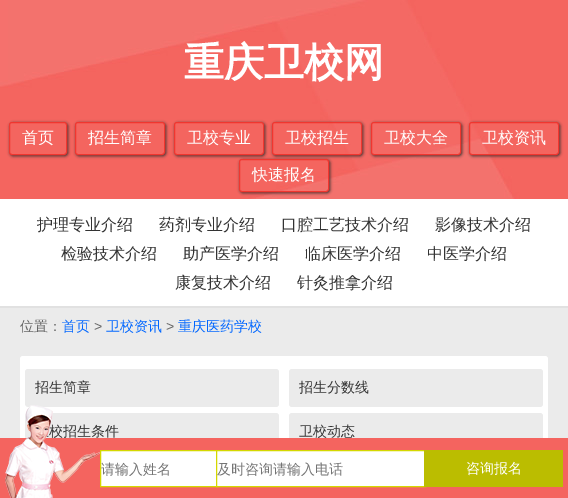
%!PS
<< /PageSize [568 498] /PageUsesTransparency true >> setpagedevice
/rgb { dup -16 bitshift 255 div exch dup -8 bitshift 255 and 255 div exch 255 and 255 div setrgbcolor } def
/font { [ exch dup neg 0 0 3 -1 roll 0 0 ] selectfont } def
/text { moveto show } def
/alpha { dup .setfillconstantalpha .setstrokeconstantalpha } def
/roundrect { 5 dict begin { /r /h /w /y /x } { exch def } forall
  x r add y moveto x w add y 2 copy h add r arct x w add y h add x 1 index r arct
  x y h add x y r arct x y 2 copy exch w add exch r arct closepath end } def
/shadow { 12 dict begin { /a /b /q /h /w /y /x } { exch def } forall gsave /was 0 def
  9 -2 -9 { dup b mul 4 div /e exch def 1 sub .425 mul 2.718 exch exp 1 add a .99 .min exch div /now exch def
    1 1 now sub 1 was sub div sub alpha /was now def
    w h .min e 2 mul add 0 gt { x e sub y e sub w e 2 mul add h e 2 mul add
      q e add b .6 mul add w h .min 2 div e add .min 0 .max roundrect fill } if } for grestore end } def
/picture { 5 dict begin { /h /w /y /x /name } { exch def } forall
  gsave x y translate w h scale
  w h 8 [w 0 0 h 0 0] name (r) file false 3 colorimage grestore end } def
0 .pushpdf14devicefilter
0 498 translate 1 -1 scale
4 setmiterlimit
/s1 { /WenQuanYiZenHei-Bold 40 font 16#FFFFFF rgb } def
/s2 { /WenQuanYiZenHei-Medium 16 font 16#FFFFFF rgb } def
/s3 { /WenQuanYiZenHei-Medium 16 font 16#333333 rgb } def
/s4 { /WenQuanYiZenHei-Medium 14 font 16#666666 rgb } def
/s5 { /WenQuanYiZenHei-Medium 14 font 16#0066FF rgb } def
/s6 { /LiberationSans-Regular 14 font 16#666666 rgb } def
/s7 { /WenQuanYiZenHei-Medium 14 font 16#333333 rgb } def
/s8 { /WenQuanYiZenHei-Medium 14 font 16#757575 rgb } def
/s9 { /WenQuanYiZenHei-Medium 14 font 16#FFFFFF rgb } def
16#EBEBEB rgb
0 0 568 498 rectfill
(pic1.raw) 0 0 568 199 picture
s1
(重庆卫校网) 184 76 text
gsave
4 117 moveto 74 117 lineto 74 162 lineto 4 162 lineto closepath 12 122 moveto 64 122 lineto 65.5 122 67 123.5 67 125 curveto 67 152 lineto 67 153.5 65.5 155 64 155 curveto 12 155 lineto 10.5 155 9 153.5 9 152 curveto 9 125 lineto 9 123.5 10.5 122 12 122 curveto closepath eoclip newpath
16#333333 rgb
10 123 58 33 3 1.5 1 shadow
grestore
16#F1362F rgb
9.5 122.5 57 32 2.5 roundrect stroke
s2
(首页) 22 143 text
gsave
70 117 moveto 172 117 lineto 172 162 lineto 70 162 lineto closepath 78 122 moveto 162 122 lineto 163.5 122 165 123.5 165 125 curveto 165 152 lineto 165 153.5 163.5 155 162 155 curveto 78 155 lineto 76.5 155 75 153.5 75 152 curveto 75 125 lineto 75 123.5 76.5 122 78 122 curveto closepath eoclip newpath
16#333333 rgb
76 123 90 33 3 1.5 1 shadow
grestore
16#F1362F rgb
75.5 122.5 89 32 2.5 roundrect stroke
s2
(招生简章) 88 143 text
gsave
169 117 moveto 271 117 lineto 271 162 lineto 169 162 lineto closepath 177 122 moveto 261 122 lineto 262.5 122 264 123.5 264 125 curveto 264 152 lineto 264 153.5 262.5 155 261 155 curveto 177 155 lineto 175.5 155 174 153.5 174 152 curveto 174 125 lineto 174 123.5 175.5 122 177 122 curveto closepath eoclip newpath
16#333333 rgb
175 123 90 33 3 1.5 1 shadow
grestore
16#F1362F rgb
174.5 122.5 89 32 2.5 roundrect stroke
s2
(卫校专业) 187 143 text
gsave
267 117 moveto 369 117 lineto 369 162 lineto 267 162 lineto closepath 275 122 moveto 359 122 lineto 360.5 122 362 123.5 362 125 curveto 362 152 lineto 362 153.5 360.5 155 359 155 curveto 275 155 lineto 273.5 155 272 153.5 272 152 curveto 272 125 lineto 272 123.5 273.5 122 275 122 curveto closepath eoclip newpath
16#333333 rgb
273 123 90 33 3 1.5 1 shadow
grestore
16#F1362F rgb
272.5 122.5 89 32 2.5 roundrect stroke
s2
(卫校招生) 285 143 text
gsave
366 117 moveto 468 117 lineto 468 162 lineto 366 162 lineto closepath 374 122 moveto 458 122 lineto 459.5 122 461 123.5 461 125 curveto 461 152 lineto 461 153.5 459.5 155 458 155 curveto 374 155 lineto 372.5 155 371 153.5 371 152 curveto 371 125 lineto 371 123.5 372.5 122 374 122 curveto closepath eoclip newpath
16#333333 rgb
372 123 90 33 3 1.5 1 shadow
grestore
16#F1362F rgb
371.5 122.5 89 32 2.5 roundrect stroke
s2
(卫校大全) 384 143 text
gsave
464 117 moveto 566 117 lineto 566 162 lineto 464 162 lineto closepath 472 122 moveto 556 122 lineto 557.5 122 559 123.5 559 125 curveto 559 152 lineto 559 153.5 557.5 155 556 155 curveto 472 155 lineto 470.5 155 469 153.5 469 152 curveto 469 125 lineto 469 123.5 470.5 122 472 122 curveto closepath eoclip newpath
16#333333 rgb
470 123 90 33 3 1.5 1 shadow
grestore
16#F1362F rgb
469.5 122.5 89 32 2.5 roundrect stroke
s2
(卫校资讯) 482 143 text
gsave
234 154 moveto 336 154 lineto 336 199 lineto 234 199 lineto closepath 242 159 moveto 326 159 lineto 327.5 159 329 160.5 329 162 curveto 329 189 lineto 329 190.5 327.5 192 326 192 curveto 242 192 lineto 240.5 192 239 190.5 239 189 curveto 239 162 lineto 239 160.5 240.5 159 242 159 curveto closepath eoclip newpath
16#333333 rgb
240 160 90 33 3 1.5 1 shadow
grestore
16#F1362F rgb
239.5 159.5 89 32 2.5 roundrect stroke
s2
(快速报名) 252 180 text
0 199 568 107 rectfill
16#E1E1E1 rgb
0 306 568 2 rectfill
s3
(护理专业介绍) 37 230 text
(药剂专业介绍) 159 230 text
(口腔工艺技术介绍) 281 230 text
(影像技术介绍) 435 230 text
(检验技术介绍) 61 259 text
(助产医学介绍) 183 259 text
(临床医学介绍) 305 259 text
(中医学介绍) 427 259 text
(康复技术介绍) 175 288 text
(针灸推拿介绍) 297 288 text
s4
(位置：) 20 331 text
s5
(首页) 62 331 text
s6
(>) 94 331 text
s5
(卫校资讯) 106 331 text
s6
(>) 166 331 text
s5
(重庆医药学校) 178 331 text
16#FFFFFF rgb
20 356 528 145 3 roundrect fill
16#EBEBEB rgb
25 369 254 38 3 roundrect fill
s7
(招生简章) 35 392 text
16#EBEBEB rgb
289 369 254 38 3 roundrect fill
s7
(招生分数线) 299 392 text
16#EBEBEB rgb
25 413 254 38 3 roundrect fill
s7
(校招生条件) 49 436 text
16#EBEBEB rgb
289 413 254 38 3 roundrect fill
s7
(卫校动态) 299 436 text
16#F4645F rgb
0 438 568 60 rectfill
(pic2.raw) 5 405 95 93 picture
16#FFFFFF rgb
101 451 115 35 rectfill
16#D5D800 rgb
100.5 450.5 117 36 rectstroke
s8
(请输入姓名) 101 474 text
16#FFFFFF rgb
217 451 207 35 rectfill
16#D5D800 rgb
216.5 450.5 209 36 rectstroke
s8
(及时咨询请输入电话) 217 474 text
16#BBBD00 rgb
424 450 139 37 rectfill
s9
(咨询报名) 466 473 text
.poppdf14devicefilter showpage
